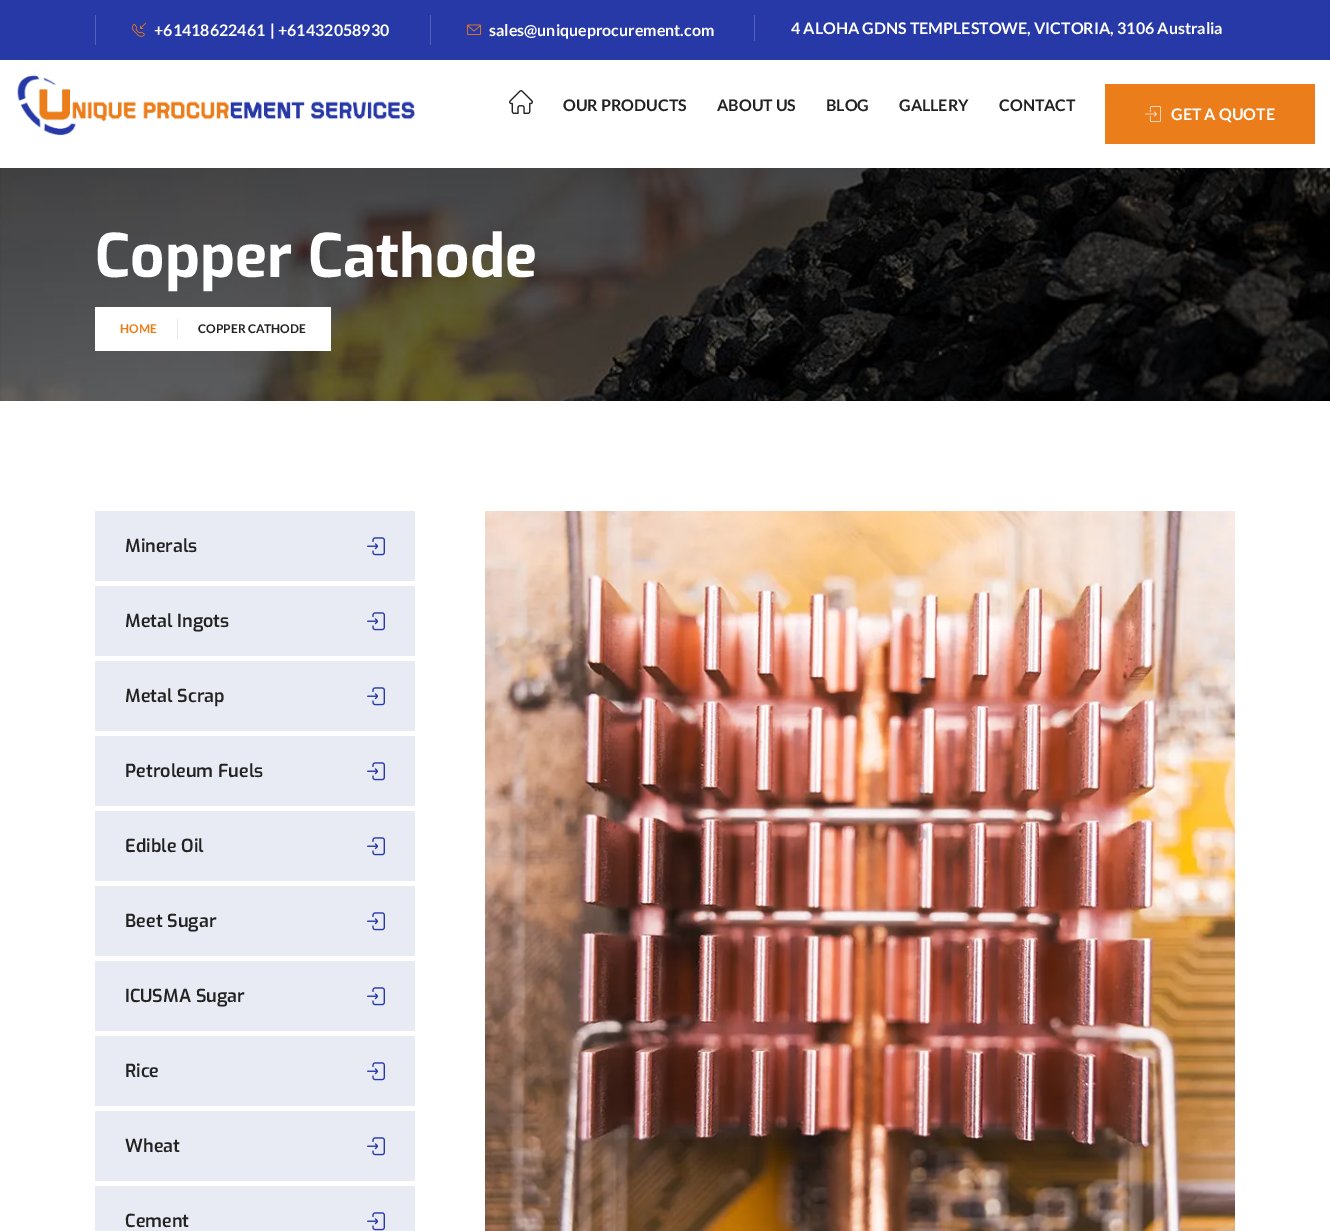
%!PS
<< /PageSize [1330 1231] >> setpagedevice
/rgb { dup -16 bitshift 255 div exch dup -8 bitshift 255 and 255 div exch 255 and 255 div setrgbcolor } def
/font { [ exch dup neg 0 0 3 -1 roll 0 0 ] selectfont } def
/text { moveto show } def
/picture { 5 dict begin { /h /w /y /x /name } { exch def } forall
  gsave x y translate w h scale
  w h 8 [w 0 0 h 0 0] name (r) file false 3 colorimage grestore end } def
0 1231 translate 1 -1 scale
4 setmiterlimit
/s1 { /Lato-Bold 16 font 16#FFFFFF rgb } def
/s2 { /Lato-Bold 16 font 16#222222 rgb } def
/s3 { /Exo-Bold 60 font 16#FFFFFF rgb } def
/s4 { /Lato-Bold 12 font 16#EC7D1B rgb } def
/s5 { /Lato-Bold 12 font 16#222222 rgb } def
/s6 { /Exo-SemiBold 18 font 16#222222 rgb } def
16#FFFFFF rgb
0 0 1330 1231 rectfill
16#2739A7 rgb
0 0 1330 60 rectfill
16#5261B9 rgb
95 15 1 30 rectfill
(pic1.raw) 132 22 14 15 picture
s1
(+61418622461) 154 36 text
(| +61432058930) 270 36 text
16#5261B9 rgb
430 15 1 30 rectfill
(pic2.raw) 467 24 14 11 picture
s1
(sales@uniqueprocurement.com) 489 36 text
16#5261B9 rgb
754 15 1 26 rectfill
s1
(4 ALOHA GDNS TEMPLESTOWE, VICTORIA, 3106 Australia) 791 34 text
(pic3.raw) 17 75 398 61 picture
(pic4.raw) 509 90 24 24 picture
s2
(OUR PRODUCTS) 563 111 text
(ABOUT US) 717 111 text
(BLOG) 826 111 text
(GALLERY) 899 111 text
(CONTACT) 999 111 text
16#EC7D1B rgb
1105 84 210 60 rectfill
(pic5.raw) 1145 106 16 16 picture
s1
(GET A QUOTE) 1171 120 text
(pic6.raw) 0 168 1330 233 picture
s3
(Copper Cathode) 95 277 text
95 307 236 44 rectfill
s4
(HOME) 120 333 text
16#E8E8E8 rgb
177 319 1 20 rectfill
s5
(COPPER CATHODE) 198 333 text
16#E9EBF4 rgb
95 511 320 70 rectfill
s6
(Minerals) 125 552 text
(pic7.raw) 367 537 18 19 picture
16#E9EBF4 rgb
95 586 320 70 rectfill
s6
(Metal Ingots) 125 627 text
(pic7.raw) 367 612 18 19 picture
16#E9EBF4 rgb
95 661 320 70 rectfill
s6
(Metal Scrap) 125 702 text
(pic7.raw) 367 687 18 19 picture
16#E9EBF4 rgb
95 736 320 70 rectfill
s6
(Petroleum Fuels) 125 777 text
(pic7.raw) 367 762 18 19 picture
16#E9EBF4 rgb
95 811 320 70 rectfill
s6
(Edible Oil) 125 852 text
(pic7.raw) 367 837 18 19 picture
16#E9EBF4 rgb
95 886 320 70 rectfill
s6
(Beet Sugar) 125 927 text
(pic7.raw) 367 912 18 19 picture
16#E9EBF4 rgb
95 961 320 70 rectfill
s6
(ICUSMA Sugar) 125 1002 text
(pic7.raw) 367 987 18 19 picture
16#E9EBF4 rgb
95 1036 320 70 rectfill
s6
(Rice) 125 1077 text
(pic7.raw) 367 1062 18 19 picture
16#E9EBF4 rgb
95 1111 320 70 rectfill
s6
(Wheat) 125 1152 text
(pic7.raw) 367 1137 18 19 picture
16#E9EBF4 rgb
95 1186 320 45 rectfill
s6
(Cement) 125 1227 text
(pic7.raw) 367 1212 18 19 picture
(pic8.raw) 485 511 750 720 picture
showpage
